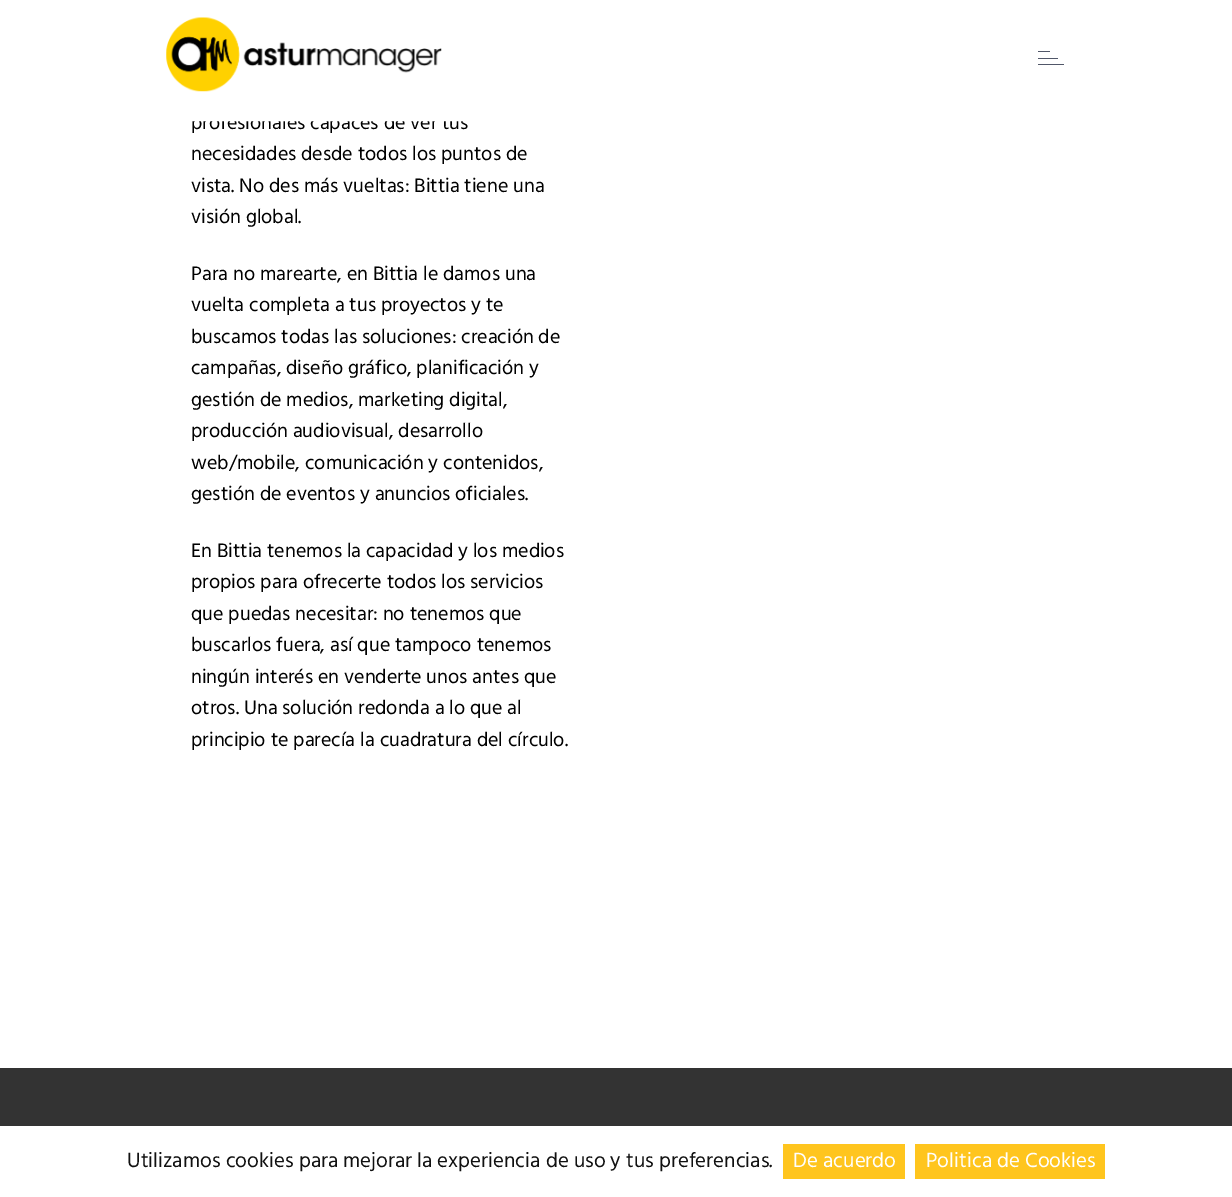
%!PS
<< /PageSize [1232 1197] >> setpagedevice
/rgb { dup -16 bitshift 255 div exch dup -8 bitshift 255 and 255 div exch 255 and 255 div setrgbcolor } def
/font { [ exch dup neg 0 0 3 -1 roll 0 0 ] selectfont } def
/text { moveto show } def
/picture { 5 dict begin { /h /w /y /x /name } { exch def } forall
  gsave x y translate w h scale
  w h 8 [w 0 0 h 0 0] name (r) file false 3 colorimage grestore end } def
0 1197 translate 1 -1 scale
4 setmiterlimit
/s1 { /Hind-Regular 20 font 16#000000 rgb } def
/s2 { /Hind-Regular 21 font 16#111111 rgb } def
/s3 { /Hind-Regular 21 font 16#FFFFFF rgb } def
16#FFFFFF rgb
0 0 1232 1197 rectfill
s1
(profesionales capaces de ver tus) 191 129 text
16#FFFFFF rgb
192 114 276 7 rectfill
1.2 setlinewidth
1230.5 119.5 moveto 1227.5 120.5 lineto 5 120.5 lineto 2 119.5 lineto stroke
(pic1.raw) 166 17 276 75 picture
16#515769 rgb
1038 64 26 1 rectfill
1038 51 12 1 rectfill
1038 58 20 1 rectfill
s1
(necesidades desde todos los puntos de) 191 160 text
(vista. No des más vueltas: Bittia tiene una) 191 192 text
(visión global.) 191 223 text
(Para no marearte, en Bittia le damos una) 191 280 text
(vuelta completa a tus proyectos y te) 191 311 text
(buscamos todas las soluciones: creación de) 191 343 text
(campañas, diseño gráfico, planificación y) 191 374 text
(gestión de medios, marketing digital,) 191 406 text
(producción audiovisual, desarrollo) 191 437 text
(web/mobile, comunicación y contenidos,) 191 469 text
(gestión de eventos y anuncios oficiales.) 191 500 text
(En Bittia tenemos la capacidad y los medios) 191 557 text
(propios para ofrecerte todos los servicios) 191 588 text
(que puedas necesitar: no tenemos que) 191 620 text
(buscarlos fuera, así que tampoco tenemos) 191 651 text
(ningún interés en venderte unos antes que) 191 683 text
(otros. Una solución redonda a lo que al) 191 714 text
(principio te parecía la cuadratura del círculo.) 191 746 text
16#333333 rgb
0 1068 1232 58 rectfill
s2
(Utilizamos cookies para mejorar la experiencia de uso y tus preferencias.) 127 1167 text
16#FFC51E rgb
783 1144 122 35 rectfill
s3
(De acuerdo) 793 1167 text
16#FFC51E rgb
915 1144 190 35 rectfill
s3
(Politica de Cookies) 926 1167 text
showpage
